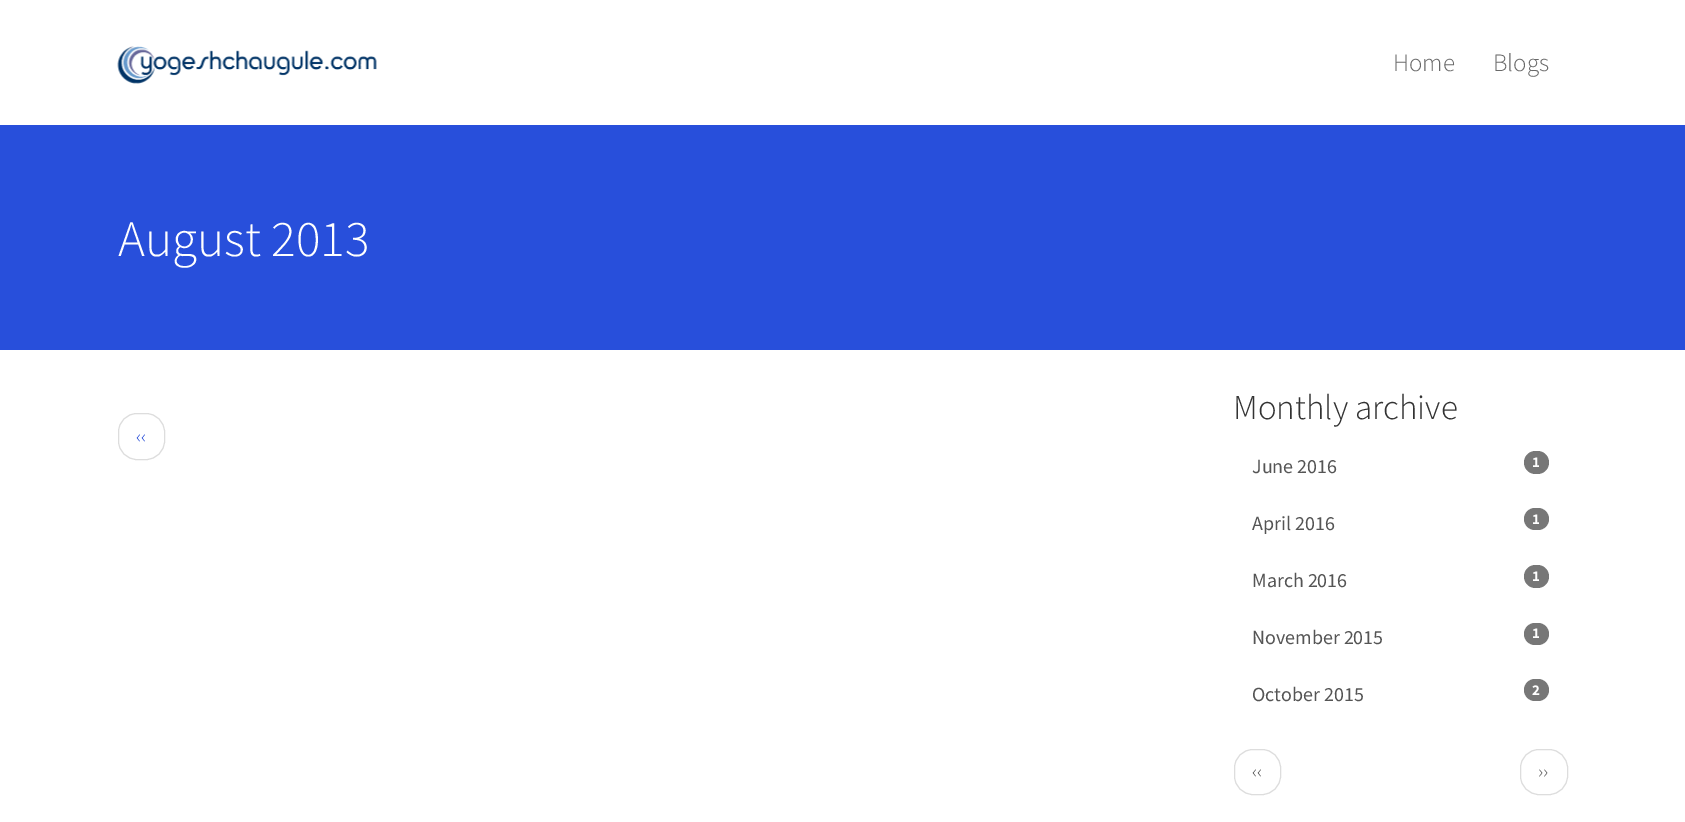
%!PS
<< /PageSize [1685 822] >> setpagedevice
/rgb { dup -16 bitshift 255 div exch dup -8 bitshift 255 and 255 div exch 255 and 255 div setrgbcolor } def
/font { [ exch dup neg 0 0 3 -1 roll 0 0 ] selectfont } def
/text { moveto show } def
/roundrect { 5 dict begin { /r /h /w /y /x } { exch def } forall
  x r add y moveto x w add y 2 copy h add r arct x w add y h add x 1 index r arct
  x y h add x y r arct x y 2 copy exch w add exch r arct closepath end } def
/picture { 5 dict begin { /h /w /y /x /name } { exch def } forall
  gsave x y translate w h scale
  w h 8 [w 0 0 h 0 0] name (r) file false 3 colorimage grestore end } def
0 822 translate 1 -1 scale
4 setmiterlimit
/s1 { /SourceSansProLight-Light 25 font 16#696969 rgb } def
/s2 { /SourceSansProLight-Light 51.25 font 16#FFFFFF rgb } def
/s3 { /SourceSansProLight-Light 20 font 16#284ED9 rgb } def
/s4 { /SourceSansProLight-Light 35 font 16#333333 rgb } def
/s5 { /SourceSansPro-Regular 20 font 16#555555 rgb } def
/s6 { /SourceSansPro-Bold 15 font 16#FFFFFF rgb } def
/s7 { /SourceSansProLight-Light 20 font 16#555555 rgb } def
16#FFFFFF rgb
0 0 1685 822 rectfill
(pic1.raw) 117 46 260 38 picture
s1
(Home) 1393 71 text
(Blogs) 1493 71 text
16#284FDB rgb
0 125 1685 225 rectfill
s2
(August 2013) 118 256 text
16#DDDDDD rgb
118.5 413.5 46 46 18.5 roundrect stroke
s3
(‹‹) 136 443 text
s4
(Monthly archive) 1233 419 text
s5
(June 2016) 1252 473 text
16#777777 rgb
1524 451 25 23 11.5 roundrect fill
s6
(1) 1532 467 text
s5
(April 2016) 1252 530 text
16#777777 rgb
1524 508 25 22 11 roundrect fill
s6
(1) 1532 524 text
s5
(March 2016) 1252 587 text
16#777777 rgb
1524 565 25 23 11.5 roundrect fill
s6
(1) 1532 581 text
s5
(November 2015) 1252 644 text
16#777777 rgb
1524 623 25 22 11 roundrect fill
s6
(1) 1532 638 text
s5
(October 2015) 1252 701 text
16#777777 rgb
1524 679 25 22 11 roundrect fill
s6
(2) 1532 695 text
16#DDDDDD rgb
1234.5 749.5 46 45 18.5 roundrect stroke
s7
(‹‹) 1252 778 text
16#DDDDDD rgb
1520.5 749.5 47 45 18.5 roundrect stroke
s7
(››) 1538 778 text
showpage
